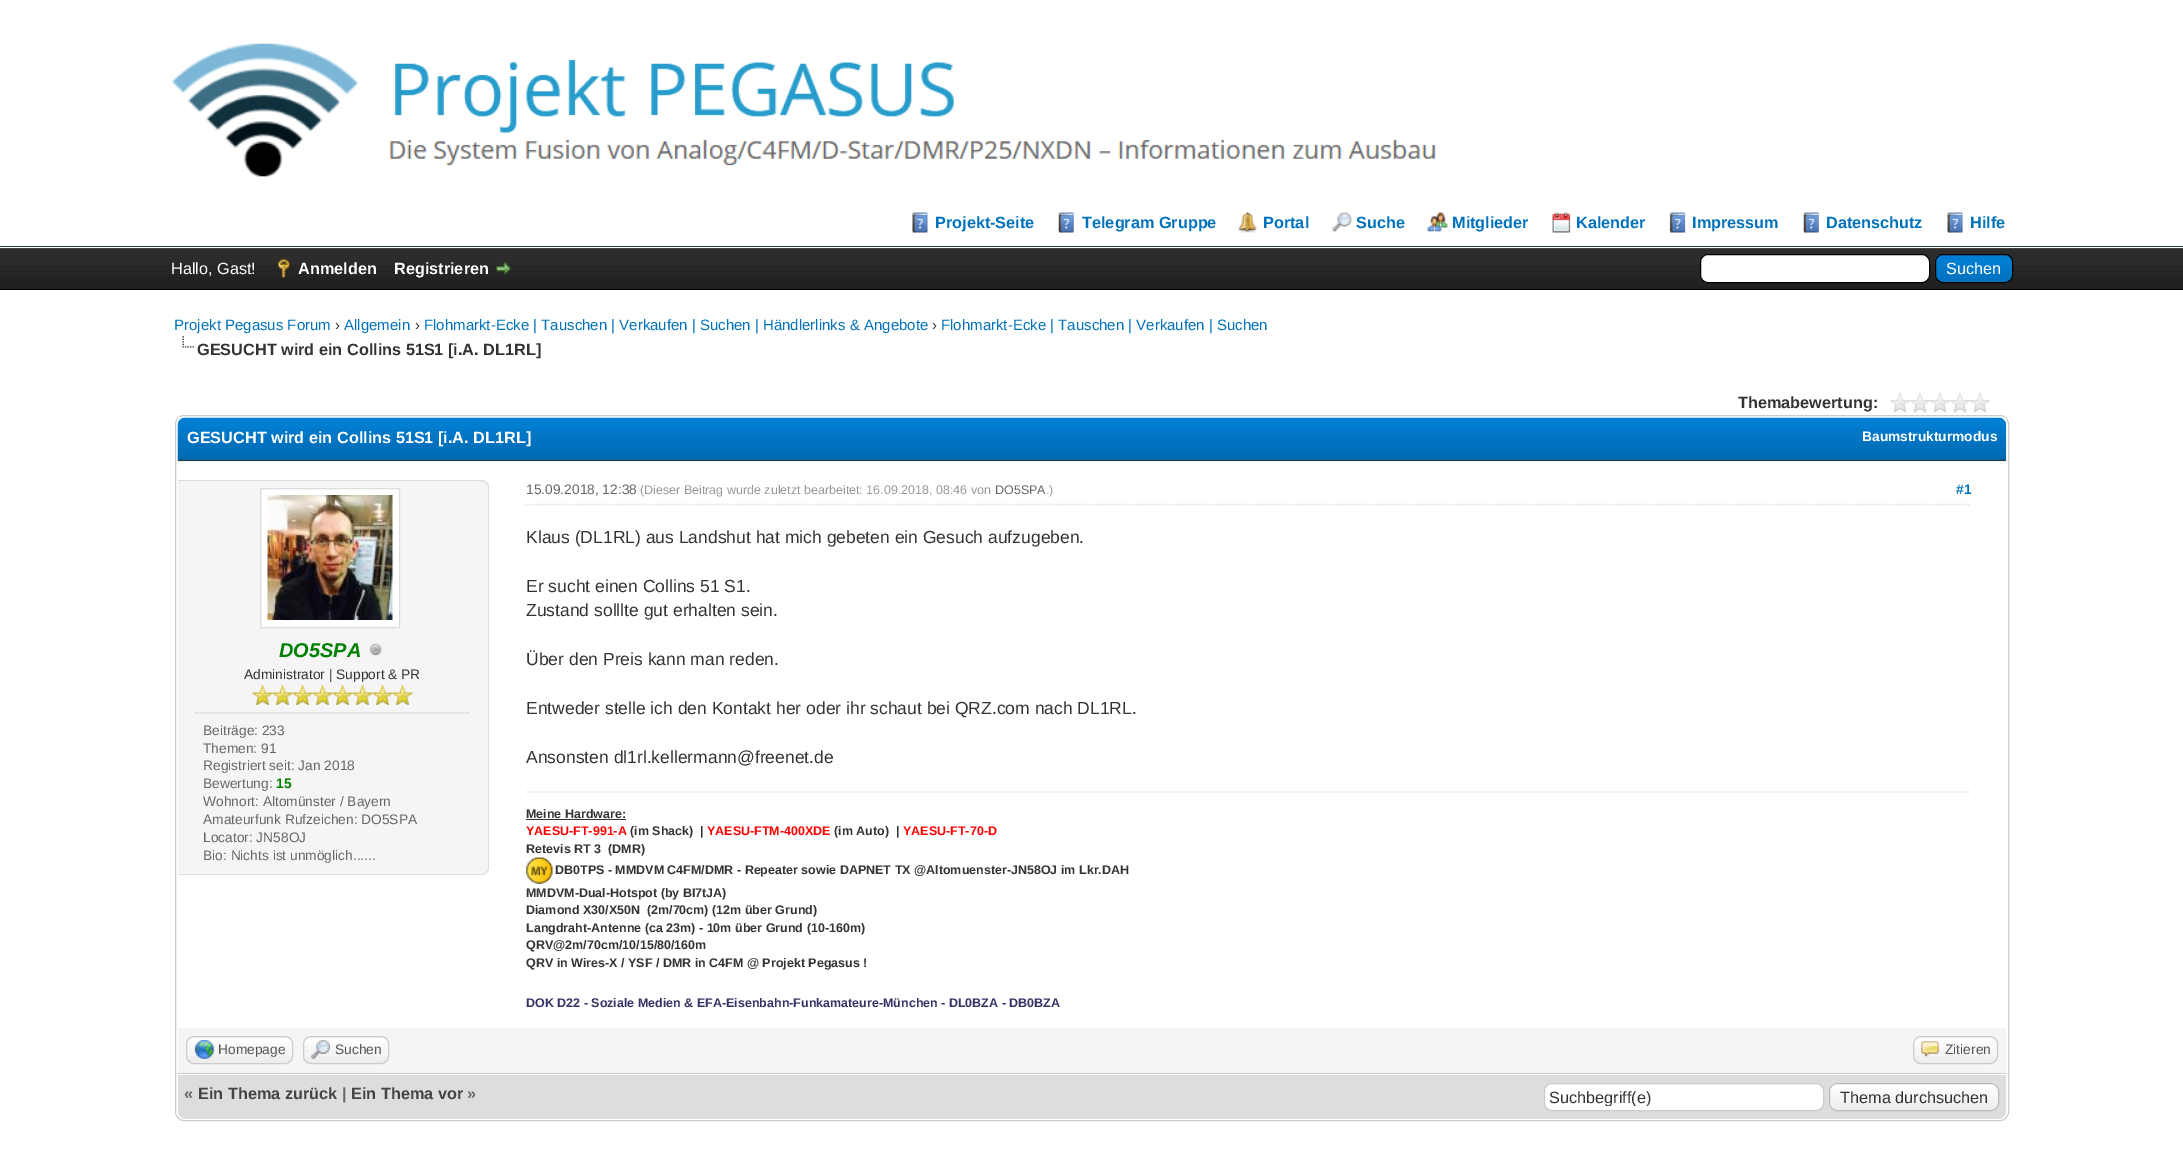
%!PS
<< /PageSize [2183 1167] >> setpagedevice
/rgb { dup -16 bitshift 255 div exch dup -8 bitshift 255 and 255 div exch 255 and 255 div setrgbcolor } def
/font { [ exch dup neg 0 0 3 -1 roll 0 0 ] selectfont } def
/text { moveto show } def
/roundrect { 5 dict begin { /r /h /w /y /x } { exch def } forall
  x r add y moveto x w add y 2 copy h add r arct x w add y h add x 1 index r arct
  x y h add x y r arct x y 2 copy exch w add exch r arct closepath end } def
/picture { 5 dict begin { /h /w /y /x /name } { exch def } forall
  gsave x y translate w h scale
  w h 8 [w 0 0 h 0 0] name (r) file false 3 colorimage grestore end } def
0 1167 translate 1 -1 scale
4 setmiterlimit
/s1 { /LiberationSans-Bold 16.25 font 16#0072BC rgb } def
/s2 { /LiberationSans-Regular 16.25 font 16#FFFFFF rgb } def
/s3 { /LiberationSans-Bold 16.25 font 16#FFFFFF rgb } def
/s4 { /LiberationSans-Regular 15 font 16#0072BC rgb } def
/s5 { /LiberationSans-Regular 15 font 16#333333 rgb } def
/s6 { /LiberationSans-Bold 16.25 font 16#333333 rgb } def
/s7 { /LiberationSans-Bold 13.75 font 16#FFFFFF rgb } def
/s8 { /LiberationSans-BoldItalic 20 font 16#008000 rgb } def
/s9 { /LiberationSans-Regular 13.75 font 16#333333 rgb } def
/s10 { /LiberationSans-Regular 13.75 font 16#666666 rgb } def
/s11 { /LiberationSans-Bold 13.75 font 16#008000 rgb } def
/s12 { /LiberationSans-Regular 12.5 font 16#999999 rgb } def
/s13 { /LiberationSans-Regular 12.5 font 16#666666 rgb } def
/s14 { /LiberationSans-Bold 13.75 font 16#0072BC rgb } def
/s15 { /LiberationSans-Regular 17.5 font 16#333333 rgb } def
/s16 { /LiberationSans-Bold 12.5 font 16#333333 rgb } def
/s17 { /LiberationSans-Bold 12.5 font 16#FF0000 rgb } def
/s18 { /LiberationSans-Bold 12.5 font 16#333366 rgb } def
/s19 { /LiberationSans-Regular 13.75 font 16#555555 rgb } def
/s20 { /LiberationSans-Bold 16.25 font 16#666666 rgb } def
/s21 { /LiberationSans-Bold 16.25 font 16#444444 rgb } def
/s22 { /LiberationSans-Regular 16.25 font 16#333333 rgb } def
16#FFFFFF rgb
0 0 2183 1167 rectfill
16#263C30 rgb
0 246 2183 1 rectfill
(pic1.raw) 172 43 1264 134 picture
(pic2.raw) 912 212 16 21 picture
s1
(Projekt-Seite) 935 228 text
(pic3.raw) 1058 212 16 21 picture
(Telegram Gruppe) 1082 228 text
(pic4.raw) 1238 212 19 21 picture
(Portal) 1263 228 text
(pic5.raw) 1332 212 20 20 picture
(Suche) 1356 228 text
(pic6.raw) 1427 212 21 20 picture
(Mitglieder) 1452 228 text
(pic7.raw) 1552 212 19 21 picture
(Kalender) 1576 228 text
(pic8.raw) 1669 212 17 21 picture
(Impressum) 1692 228 text
(pic3.raw) 1803 212 16 21 picture
(Datenschutz) 1826 228 text
(pic9.raw) 1947 212 16 21 picture
(Hilfe) 1970 228 text
(pic10.raw) 0 249 2183 40 picture
16#444444 rgb
0 248 2183 1 rectfill
16#000000 rgb
0 289 2183 1 rectfill
s2
(Hallo, Gast!) 171 274 text
(pic11.raw) 277 258 14 20 picture
s3
(Anmelden) 298 274 text
(Registrieren) 394 274 text
(pic12.raw) 496 262 16 14 picture
1700.5 254.5 229 28 7.5 roundrect gsave fill grestore
16#000000 rgb
stroke
(pic13.raw) 1935 255 78 28 picture
1935.5 254.5 77 28 7.5 roundrect stroke
s2
(Suchen) 1946 274 text
s4
(Projekt Pegasus Forum) 174 330 text
s5
(›) 335 330 text
s4
(Allgemein) 344 330 text
s5
(›) 415 330 text
s4
(Flohmarkt-Ecke | Tauschen | Verkaufen | Suchen | Händlerlinks & Angebote) 424 330 text
s5
(›) 932 330 text
s4
(Flohmarkt-Ecke | Tauschen | Verkaufen | Suchen) 941 330 text
(pic14.raw) 182 336 12 12 picture
s6
(GESUCHT wird ein Collins 51S1 [i.A. DL1RL]) 197 355 text
(Themabewertung:) 1738 408 text
(pic15.raw) 1890 392 100 21 picture
16#CCCCCC rgb
175.5 415.5 1833 705 8.5 roundrect stroke
(pic16.raw) 177 417 1830 45 picture
16#263C30 rgb
178 460 1828 1 rectfill
s3
(GESUCHT wird ein Collins 51S1 [i.A. DL1RL]) 187 443 text
s7
(Baumstrukturmodus) 1862 441 text
16#F5F5F5 rgb
178 480 moveto 481 480 lineto 485.5 480 489 483.5 489 488 curveto 489 867 lineto 489 871.5 485.5 875 481 875 curveto 178 875 lineto closepath fill
16#DDDDDD rgb
178 480 moveto 481 480 lineto 485 480 489 483 489 488 curveto 489 868 lineto 489 872 485 875 481 875 curveto 178 875 lineto closepath 178 481 moveto 481 481 lineto 485 481 488 484 488 488 curveto 488 868 lineto 488 871 485 874 481 874 curveto 178 874 lineto closepath eofill
16#FFFFFF rgb
260.5 488.5 moveto 399.5 488.5 lineto 399.5 627.5 lineto 260.5 627.5 lineto closepath gsave fill grestore
16#DDDDDD rgb
stroke
(pic17.raw) 267 495 126 125 picture
s8
(DO5SPA) 279 657 text
(pic18.raw) 369 643 13 13 picture
s9
(Administrator | Support & PR) 244 679 text
(pic19.raw) 252 685 21 20 picture
(pic20.raw) 272 685 21 20 picture
(pic21.raw) 292 685 21 20 picture
(pic20.raw) 312 685 21 20 picture
(pic20.raw) 332 685 21 20 picture
(pic21.raw) 352 685 21 20 picture
(pic21.raw) 372 685 21 20 picture
(pic21.raw) 392 685 21 20 picture
16#CCCCCC rgb
1.2 setlinewidth
[1.25 1.25] 0 setdash
195 713 moveto 470 713 lineto stroke
s10
(Beiträge: 233) 203 735 text
(Themen: 91) 203 753 text
(Registriert seit: Jan 2018) 203 770 text
(Bewertung:) 203 788 text
s11
(15) 276 788 text
s10
(Wohnort: Altomünster / Bayern) 203 806 text
(Amateurfunk Rufzeichen: DO5SPA) 203 824 text
(Locator: JN58OJ) 203 842 text
(Bio: Nichts ist unmöglich......) 203 860 text
16#DDDDDD rgb
526 504.5 moveto 1971 504.5 lineto stroke
s10
(15.09.2018, 12:38) 526 494 text
s12
(\(Dieser Beitrag wurde zuletzt bearbeitet: 16.09.2018, 08:46 von) 640 494 text
s13
(DO5SPA) 995 494 text
s12
(.\)) 1046 494 text
s14
(#1) 1956 494 text
s15
(Klaus \(DL1RL\) aus Landshut hat mich gebeten ein Gesuch aufzugeben.) 526 543 text
(Er sucht einen Collins 51 S1.) 526 592 text
(Zustand solllte gut erhalten sein.) 526 616 text
(Über den Preis kann man reden.) 526 665 text
(Entweder stelle ich den Kontakt her oder ihr schaut bei QRZ.com nach DL1RL.) 526 714 text
(Ansonsten dl1rl.kellermann@freenet.de) 526 763 text
16#DDDDDD rgb
526 792 moveto 1971 792 lineto stroke
s16
(Meine Hardware:) 526 818 text
526 819 100 1 rectfill
s17
(YAESU-FT-991-A) 526 835 text
s16
(\(im Shack\)  |) 630 835 text
s17
(YAESU-FTM-400XDE) 707 835 text
s16
(\(im Auto\)  |) 834 835 text
s17
(YAESU-FT-70-D) 903 835 text
s16
(Retevis RT 3  \(DMR\)) 526 853 text
(pic22.raw) 526 857 27 27 picture
(DB0TPS - MMDVM C4FM/DMR - Repeater sowie DAPNET TX @Altomuenster-JN58OJ im Lkr.DAH) 555 874 text
(MMDVM-Dual-Hotspot \(by BI7tJA\)) 526 897 text
(Diamond X30/X50N  \(2m/70cm\) \(12m über Grund\)) 526 914 text
(Langdraht-Antenne \(ca 23m\) - 10m über Grund \(10-160m\)) 526 932 text
(QRV@2m/70cm/10/15/80/160m) 526 949 text
(QRV in Wires-X / YSF / DMR in C4FM @ Projekt Pegasus !) 526 967 text
s18
(DOK D22 - Soziale Medien & EFA-Eisenbahn-Funkamateure-München - DL0BZA - DB0BZA) 526 1007 text
16#F5F5F5 rgb
178 1028 1828 45 rectfill
16#CCCCCC rgb
178 1073 1828 1 rectfill
16#EEEEEE rgb
186 1036 107 28 8 roundrect fill
(pic23.raw) 186 1037 106 19 picture
16#CCCCCC rgb
1 setlinewidth
[] 0 setdash
186.5 1036.5 106 27 7.5 roundrect stroke
(pic24.raw) 194 1040 20 19 picture
s19
(Homepage) 218 1054 text
16#EEEEEE rgb
303 1036 86 28 8 roundrect fill
(pic25.raw) 303 1037 86 26 picture
16#CCCCCC rgb
303.5 1036.5 85 27 7.5 roundrect stroke
(pic26.raw) 311 1040 19 19 picture
s19
(Suchen) 335 1054 text
16#EEEEEE rgb
1913 1036 85 28 8 roundrect fill
(pic27.raw) 1913 1037 84 26 picture
16#CCCCCC rgb
1913.5 1036.5 84 27 7.5 roundrect stroke
(pic28.raw) 1921 1041 18 16 picture
s19
(Zitieren) 1945 1054 text
16#DDDDDD rgb
178 1074 moveto 2006 1074 lineto 2006 1111 lineto 2006 1115.5 2002.5 1119 1998 1119 curveto 186 1119 lineto 181.5 1119 178 1115.5 178 1111 curveto closepath fill
16#FFFFFF rgb
178 1074 1828 1 rectfill
s20
(«) 184 1099 text
s21
(Ein Thema zurück) 198 1099 text
s20
(|) 342 1099 text
s21
(Ein Thema vor) 351 1099 text
s20
(») 467 1099 text
16#FFFFFF rgb
1544.5 1083.5 279 27 7.5 roundrect gsave fill grestore
16#CCCCCC rgb
stroke
gsave
1549 1088 270 18 rectclip
s22
(Suchbegriff\(e\)) 1549 1103 text
grestore
(pic29.raw) 1829 1083 170 28 picture
16#BBBBBB rgb
1829.5 1083.5 169 27 7.5 roundrect stroke
s22
(Thema durchsuchen) 1840 1103 text
showpage
